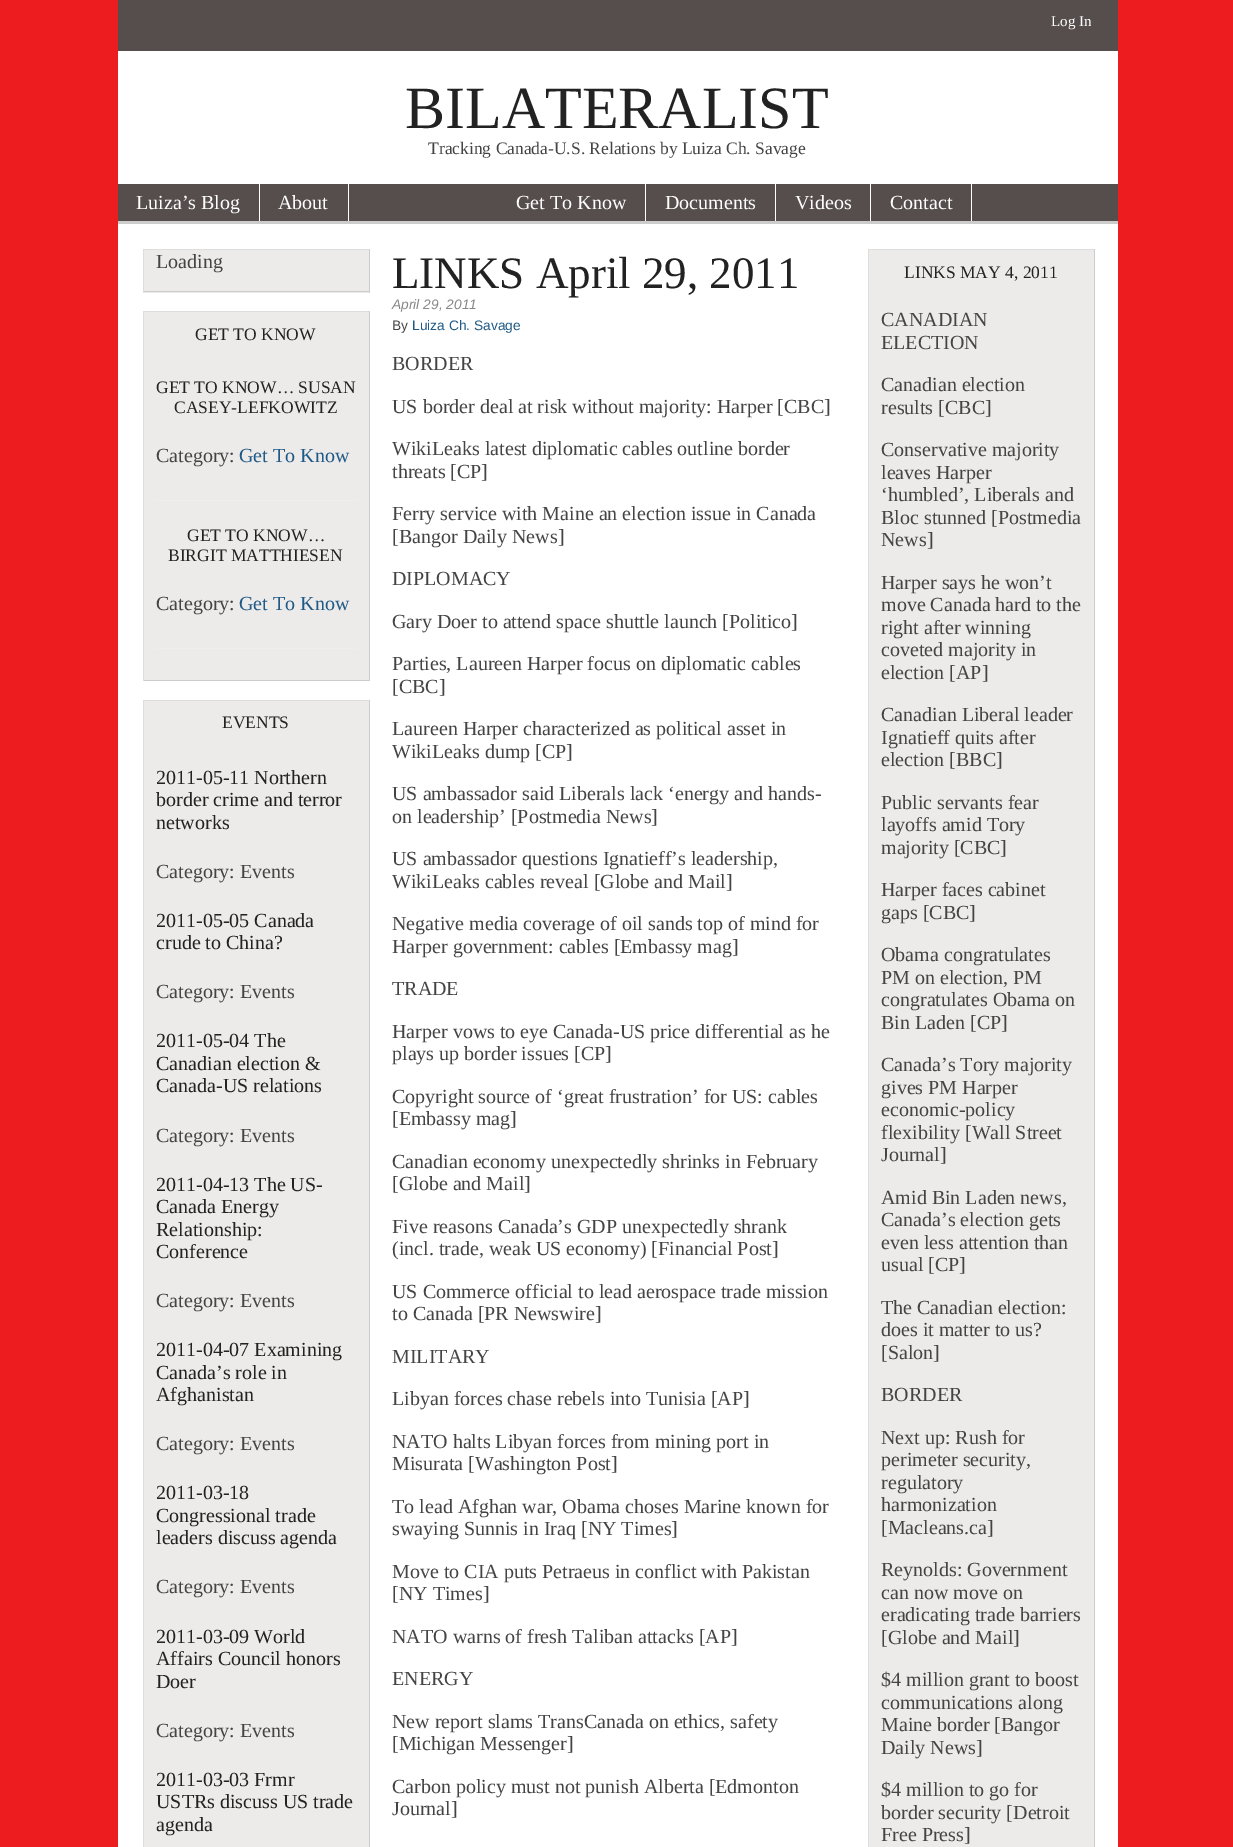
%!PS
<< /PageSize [1233 1847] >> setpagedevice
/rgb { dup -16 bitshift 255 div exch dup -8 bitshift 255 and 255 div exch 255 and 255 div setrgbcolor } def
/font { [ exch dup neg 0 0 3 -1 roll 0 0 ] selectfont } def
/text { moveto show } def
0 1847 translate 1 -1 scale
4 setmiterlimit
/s1 { /LiberationSerif-Regular 15 font 16#FFFFFF rgb } def
/s2 { /LiberationSerif-Regular 60 font 16#222222 rgb } def
/s3 { /LiberationSerif-Regular 17.5 font 16#444444 rgb } def
/s4 { /LiberationSerif-Regular 20 font 16#FFFFFF rgb } def
/s5 { /LiberationSerif-Regular 20 font 16#444444 rgb } def
/s6 { /LiberationSerif-Regular 17.5 font 16#222222 rgb } def
/s7 { /LiberationSerif-Regular 20 font 16#205B87 rgb } def
/s8 { /LiberationSerif-Regular 20 font 16#222222 rgb } def
/s9 { /LiberationSerif-Regular 45 font 16#222222 rgb } def
/s10 { /LiberationSans-Italic 13.75 font 16#888888 rgb } def
/s11 { /LiberationSans-Regular 13.75 font 16#444444 rgb } def
/s12 { /LiberationSans-Regular 13.75 font 16#205B87 rgb } def
16#ED1D1F rgb
0 0 1233 1847 rectfill
16#FFFFFF rgb
118 51 1000 133 rectfill
16#564D4D rgb
118 0 1000 51 rectfill
s1
(Log In) 1051 26 text
s2
(BILATERALIST) 405 128 text
s3
(Tracking Canada-U.S. Relations by Luiza Ch. Savage) 428 154 text
16#564D4D rgb
118 184 1000 37 rectfill
16#FFFFFF rgb
259 184 1 37 rectfill
s4
(Luiza’s Blog) 136 209 text
348 184 1 37 rectfill
(About) 278 209 text
645 184 1 37 rectfill
(Get To Know) 516 209 text
775 184 1 37 rectfill
(Documents) 665 209 text
870 184 1 37 rectfill
(Videos) 795 209 text
971 184 1 37 rectfill
(Contact) 890 209 text
118 224 1000 1623 rectfill
16#CCCCCC rgb
118 221 1000 3 rectfill
16#EDEAEA rgb
144 250 225 43 rectfill
16#DDDDDD rgb
143 249 227 1 rectfill
16#CCCCCC rgb
369 249 1 44 rectfill
143 291 227 1 rectfill
16#DDDDDD rgb
143 249 1 44 rectfill
s5
(Loading) 156 268 text
16#EDEAEA rgb
144 312 225 368 rectfill
16#DDDDDD rgb
143 311 227 1 rectfill
16#CCCCCC rgb
369 311 1 370 rectfill
143 680 227 1 rectfill
16#DDDDDD rgb
143 311 1 370 rectfill
s6
(GET TO KNOW) 195 340 text
16#EEEEEE rgb
156 500 200 1 rectfill
s6
(GET TO KNOW… SUSAN) 156 393 text
(CASEY-LEFKOWITZ) 174 413 text
s5
(Category:) 156 462 text
s7
(Get To Know) 239 462 text
16#EEEEEE rgb
156 648 200 1 rectfill
s6
(GET TO KNOW…) 187 541 text
(BIRGIT MATTHIESEN) 168 561 text
s5
(Category:) 156 610 text
s7
(Get To Know) 239 610 text
16#EDEAEA rgb
144 701 225 1146 rectfill
16#DDDDDD rgb
143 700 227 1 rectfill
16#CCCCCC rgb
369 700 1 1147 rectfill
16#DDDDDD rgb
143 700 1 1147 rectfill
s6
(EVENTS) 222 728 text
s8
(2011-05-11 Northern) 156 784 text
(border crime and terror) 156 806 text
(networks) 156 829 text
s5
(Category: Events) 156 878 text
s8
(2011-05-05 Canada) 156 927 text
(crude to China?) 156 949 text
s5
(Category: Events) 156 998 text
s8
(2011-05-04 The) 156 1047 text
(Canadian election &) 156 1070 text
(Canada-US relations) 156 1092 text
s5
(Category: Events) 156 1142 text
s8
(2011-04-13 The US-) 156 1191 text
(Canada Energy) 156 1213 text
(Relationship:) 156 1236 text
(Conference) 156 1258 text
s5
(Category: Events) 156 1307 text
s8
(2011-04-07 Examining) 156 1356 text
(Canada’s role in) 156 1379 text
(Afghanistan) 156 1401 text
s5
(Category: Events) 156 1450 text
s8
(2011-03-18) 156 1499 text
(Congressional trade) 156 1522 text
(leaders discuss agenda) 156 1544 text
s5
(Category: Events) 156 1593 text
s8
(2011-03-09 World) 156 1643 text
(Affairs Council honors) 156 1665 text
(Doer) 156 1688 text
s5
(Category: Events) 156 1737 text
s8
(2011-03-03 Frmr) 156 1786 text
(USTRs discuss US trade) 156 1808 text
(agenda) 156 1831 text
s9
(LINKS April 29, 2011) 392 288 text
s10
(April 29, 2011) 392 309 text
s11
(By) 392 330 text
s12
(Luiza Ch. Savage) 412 330 text
s5
(BORDER) 392 370 text
(US border deal at risk without majority: Harper [CBC]) 392 413 text
(WikiLeaks latest diplomatic cables outline border) 392 455 text
(threats [CP]) 392 478 text
(Ferry service with Maine an election issue in Canada) 392 520 text
([Bangor Daily News]) 392 543 text
(DIPLOMACY) 392 585 text
(Gary Doer to attend space shuttle launch [Politico]) 392 628 text
(Parties, Laureen Harper focus on diplomatic cables) 392 670 text
([CBC]) 392 693 text
(Laureen Harper characterized as political asset in) 392 735 text
(WikiLeaks dump [CP]) 392 758 text
(US ambassador said Liberals lack ‘energy and hands-) 392 800 text
(on leadership’ [Postmedia News]) 392 823 text
(US ambassador questions Ignatieff’s leadership,) 392 865 text
(WikiLeaks cables reveal [Globe and Mail]) 392 888 text
(Negative media coverage of oil sands top of mind for) 392 930 text
(Harper government: cables [Embassy mag]) 392 953 text
(TRADE) 392 995 text
(Harper vows to eye Canada-US price differential as he) 392 1038 text
(plays up border issues [CP]) 392 1060 text
(Copyright source of ‘great frustration’ for US: cables) 392 1103 text
([Embassy mag]) 392 1125 text
(Canadian economy unexpectedly shrinks in February) 392 1168 text
([Globe and Mail]) 392 1190 text
(Five reasons Canada’s GDP unexpectedly shrank) 392 1233 text
(\(incl. trade, weak US economy\) [Financial Post]) 392 1255 text
(US Commerce official to lead aerospace trade mission) 392 1298 text
(to Canada [PR Newswire]) 392 1320 text
(MILITARY) 392 1363 text
(Libyan forces chase rebels into Tunisia [AP]) 392 1405 text
(NATO halts Libyan forces from mining port in) 392 1448 text
(Misurata [Washington Post]) 392 1470 text
(To lead Afghan war, Obama choses Marine known for) 392 1513 text
(swaying Sunnis in Iraq [NY Times]) 392 1535 text
(Move to CIA puts Petraeus in conflict with Pakistan) 392 1578 text
([NY Times]) 392 1600 text
(NATO warns of fresh Taliban attacks [AP]) 392 1643 text
(ENERGY) 392 1685 text
(New report slams TransCanada on ethics, safety) 392 1728 text
([Michigan Messenger]) 392 1750 text
(Carbon policy must not punish Alberta [Edmonton) 392 1793 text
(Journal]) 392 1815 text
16#EDEAEA rgb
869 250 225 1597 rectfill
16#DDDDDD rgb
868 249 227 1 rectfill
16#CCCCCC rgb
1094 249 1 1598 rectfill
16#DDDDDD rgb
868 249 1 1598 rectfill
s6
(LINKS MAY 4, 2011) 904 278 text
s5
(CANADIAN) 881 326 text
(ELECTION) 881 349 text
(Canadian election) 881 391 text
(results [CBC]) 881 414 text
(Conservative majority) 881 456 text
(leaves Harper) 881 479 text
(‘humbled’, Liberals and) 881 501 text
(Bloc stunned [Postmedia) 881 524 text
(News]) 881 546 text
(Harper says he won’t) 881 589 text
(move Canada hard to the) 881 611 text
(right after winning) 881 634 text
(coveted majority in) 881 656 text
(election [AP]) 881 679 text
(Canadian Liberal leader) 881 721 text
(Ignatieff quits after) 881 744 text
(election [BBC]) 881 766 text
(Public servants fear) 881 809 text
(layoffs amid Tory) 881 831 text
(majority [CBC]) 881 854 text
(Harper faces cabinet) 881 896 text
(gaps [CBC]) 881 919 text
(Obama congratulates) 881 961 text
(PM on election, PM) 881 984 text
(congratulates Obama on) 881 1006 text
(Bin Laden [CP]) 881 1029 text
(Canada’s Tory majority) 881 1071 text
(gives PM Harper) 881 1094 text
(economic-policy) 881 1116 text
(flexibility [Wall Street) 881 1139 text
(Journal]) 881 1161 text
(Amid Bin Laden news,) 881 1204 text
(Canada’s election gets) 881 1226 text
(even less attention than) 881 1249 text
(usual [CP]) 881 1271 text
(The Canadian election:) 881 1314 text
(does it matter to us?) 881 1336 text
([Salon]) 881 1359 text
(BORDER) 881 1401 text
(Next up: Rush for) 881 1444 text
(perimeter security,) 881 1466 text
(regulatory) 881 1489 text
(harmonization) 881 1511 text
([Macleans.ca]) 881 1534 text
(Reynolds: Government) 881 1576 text
(can now move on) 881 1599 text
(eradicating trade barriers) 881 1621 text
([Globe and Mail]) 881 1644 text
($4 million grant to boost) 881 1686 text
(communications along) 881 1709 text
(Maine border [Bangor) 881 1731 text
(Daily News]) 881 1754 text
($4 million to go for) 881 1796 text
(border security [Detroit) 881 1819 text
(Free Press]) 881 1841 text
showpage
